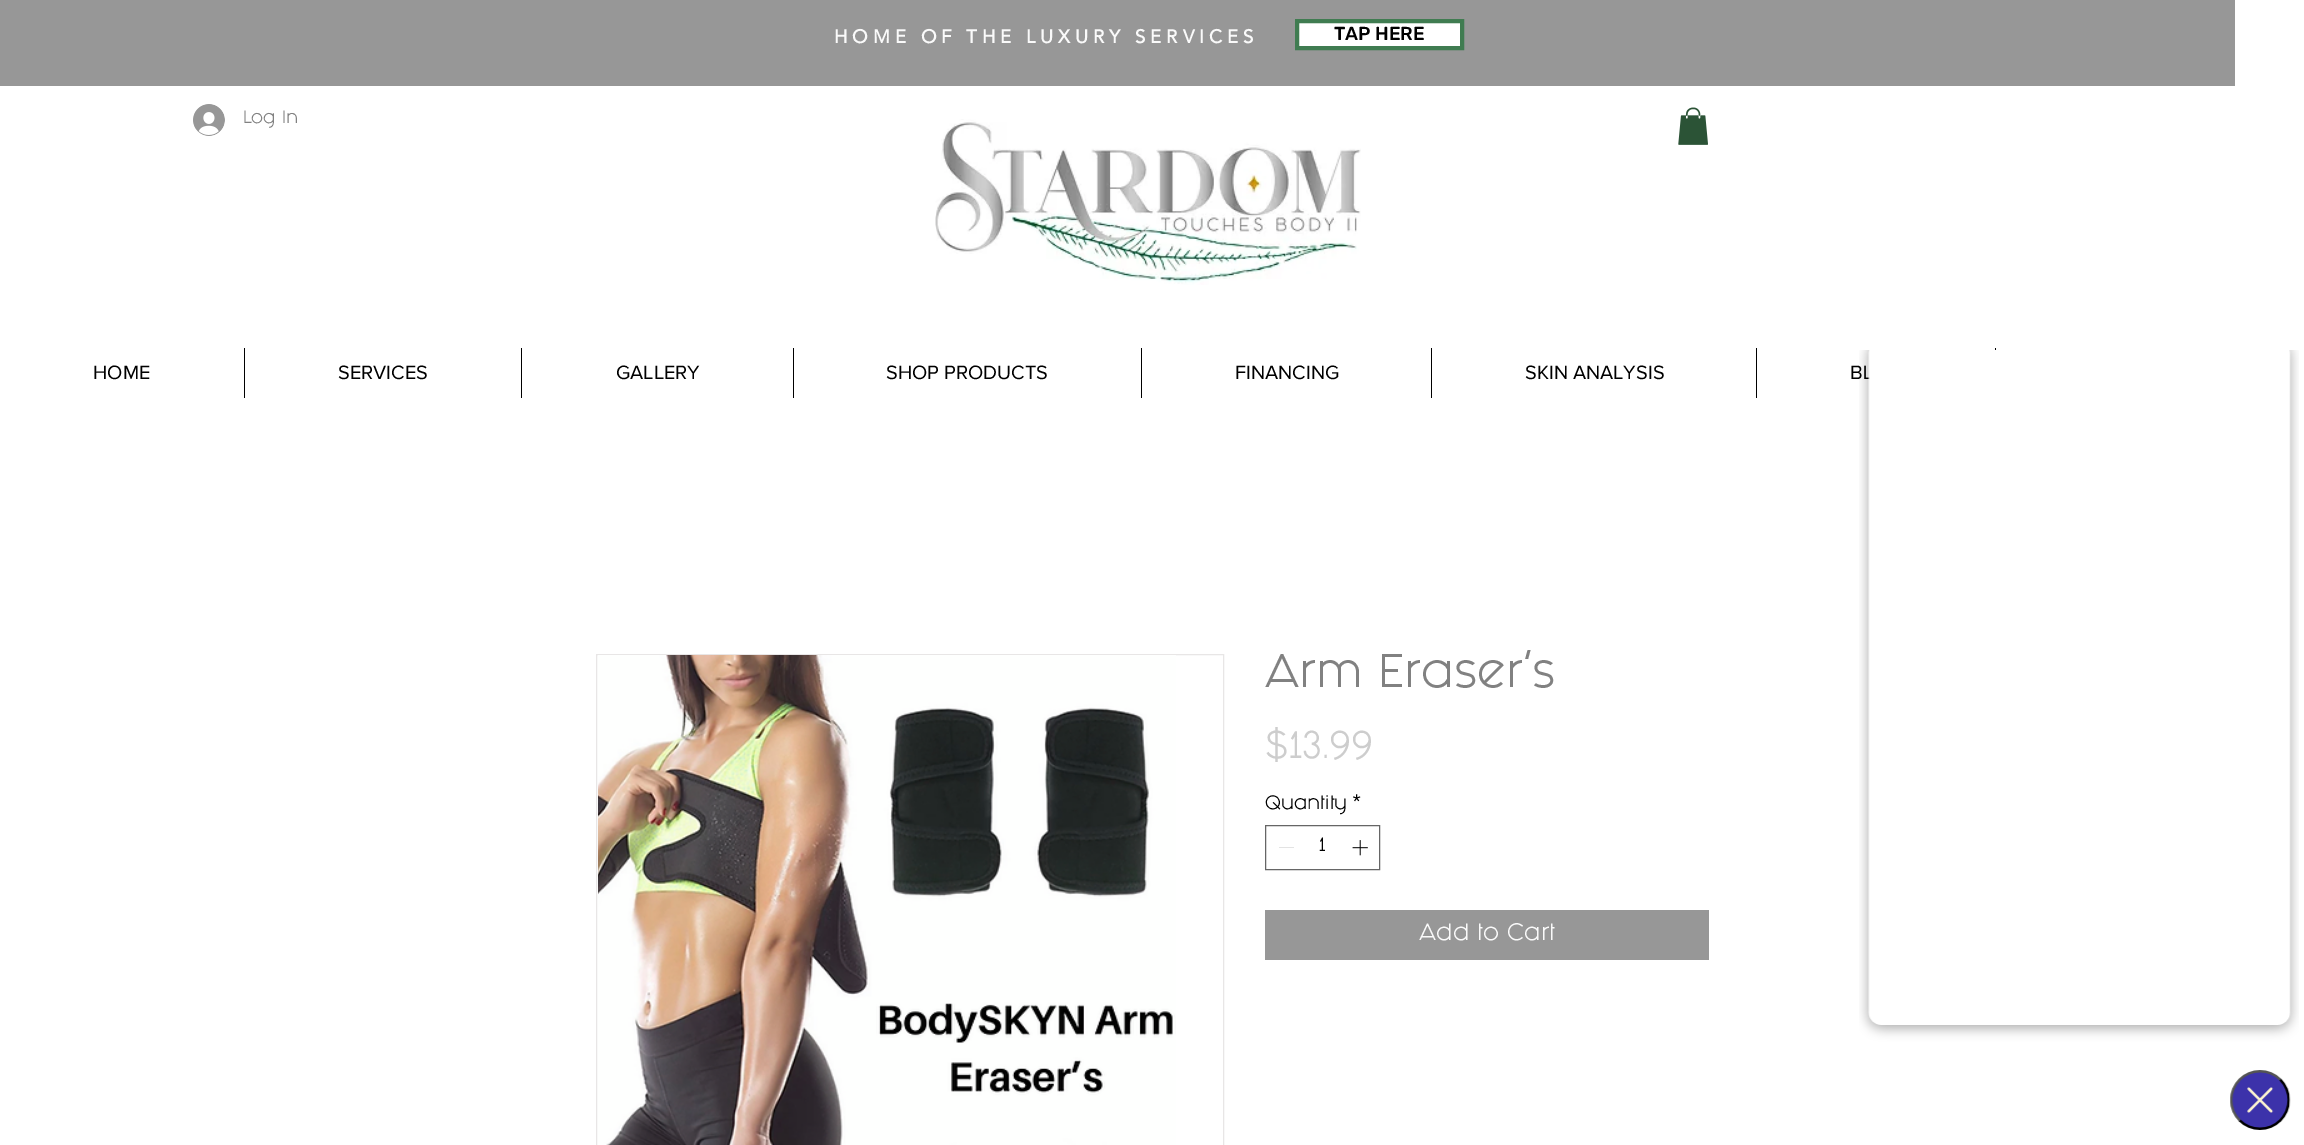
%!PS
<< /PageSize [2304 1145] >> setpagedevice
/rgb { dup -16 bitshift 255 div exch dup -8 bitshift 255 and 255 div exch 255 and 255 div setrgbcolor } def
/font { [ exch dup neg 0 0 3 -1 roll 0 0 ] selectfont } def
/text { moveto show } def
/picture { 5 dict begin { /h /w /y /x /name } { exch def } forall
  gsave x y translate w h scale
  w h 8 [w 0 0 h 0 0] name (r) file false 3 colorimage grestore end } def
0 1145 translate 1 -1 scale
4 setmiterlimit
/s1 { /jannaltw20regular-Bold 18.75 font 16#FAFAFA rgb } def
/s2 { /Rubik-Medium 18.75 font 16#000000 rgb } def
/s3 { /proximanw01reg-Regular 20 font 16#000000 rgb } def
/s4 { /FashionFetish-Regular 15 font 16#818181 rgb } def
/s5 { /FashionFetish-Regular 40 font 16#818181 rgb } def
/s6 { /FashionFetish-Regular 32.5 font 16#CDCDCD rgb } def
/s7 { /FashionFetish-Regular 16.25 font 16#000000 rgb } def
/s8 { /FashionFetish-Regular 20 font 16#FAFAFA rgb } def
16#FFFFFF rgb
0 0 2304 1145 rectfill
16#979797 rgb
0 0 2235 86 rectfill
s1
(H O M E   O F   T H E   L U X U R Y   S E R V I C E S) 834 43 text
16#FFFFFF rgb
1297 21 moveto 1462 21 lineto 1462 48 lineto 1297 48 lineto closepath gsave fill grestore
16#407C51 rgb
4 setlinewidth
stroke
s2
(TAP HERE) 1334 40 text
(pic1.raw) 935 119 426 166 picture
(pic2.raw) 1678 107 30 38 picture
1995 348 1 2 rectfill
s3
(HOME) 93 379 text
244 348 1 50 rectfill
(SERVICES) 338 379 text
521 348 1 50 rectfill
(GALLERY) 616 379 text
793 348 1 50 rectfill
(SHOP PRODUCTS) 886 379 text
1141 348 1 50 rectfill
(FINANCING) 1235 379 text
1431 348 1 50 rectfill
(SKIN ANALYSIS) 1525 379 text
1756 348 1 50 rectfill
(BL) 1850 379 text
(pic3.raw) 193 104 32 32 picture
s4
(Log In) 243 123 text
16#E8E6E6 rgb
1 setlinewidth
596.5 654.5 627 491 rectstroke
(pic4.raw) 598 655 578 490 picture
s5
(Arm Eraser’s) 1265 687 text
s6
($13.99) 1265 758 text
s7
(Quantity) 1265 809 text
(*) 1352 809 text
16#666666 rgb
1265.5 825.5 114 44 rectstroke
16#E3E3E3 rgb
1279 847 15 1 rectfill
s7
(1) 1319 851 text
(pic5.raw) 1352 840 16 16 picture
16#979797 rgb
1265 910 444 50 rectfill
s8
(Add to Cart) 1419 940 text
(pic6.raw) 1859 350 440 780 picture
showpage
